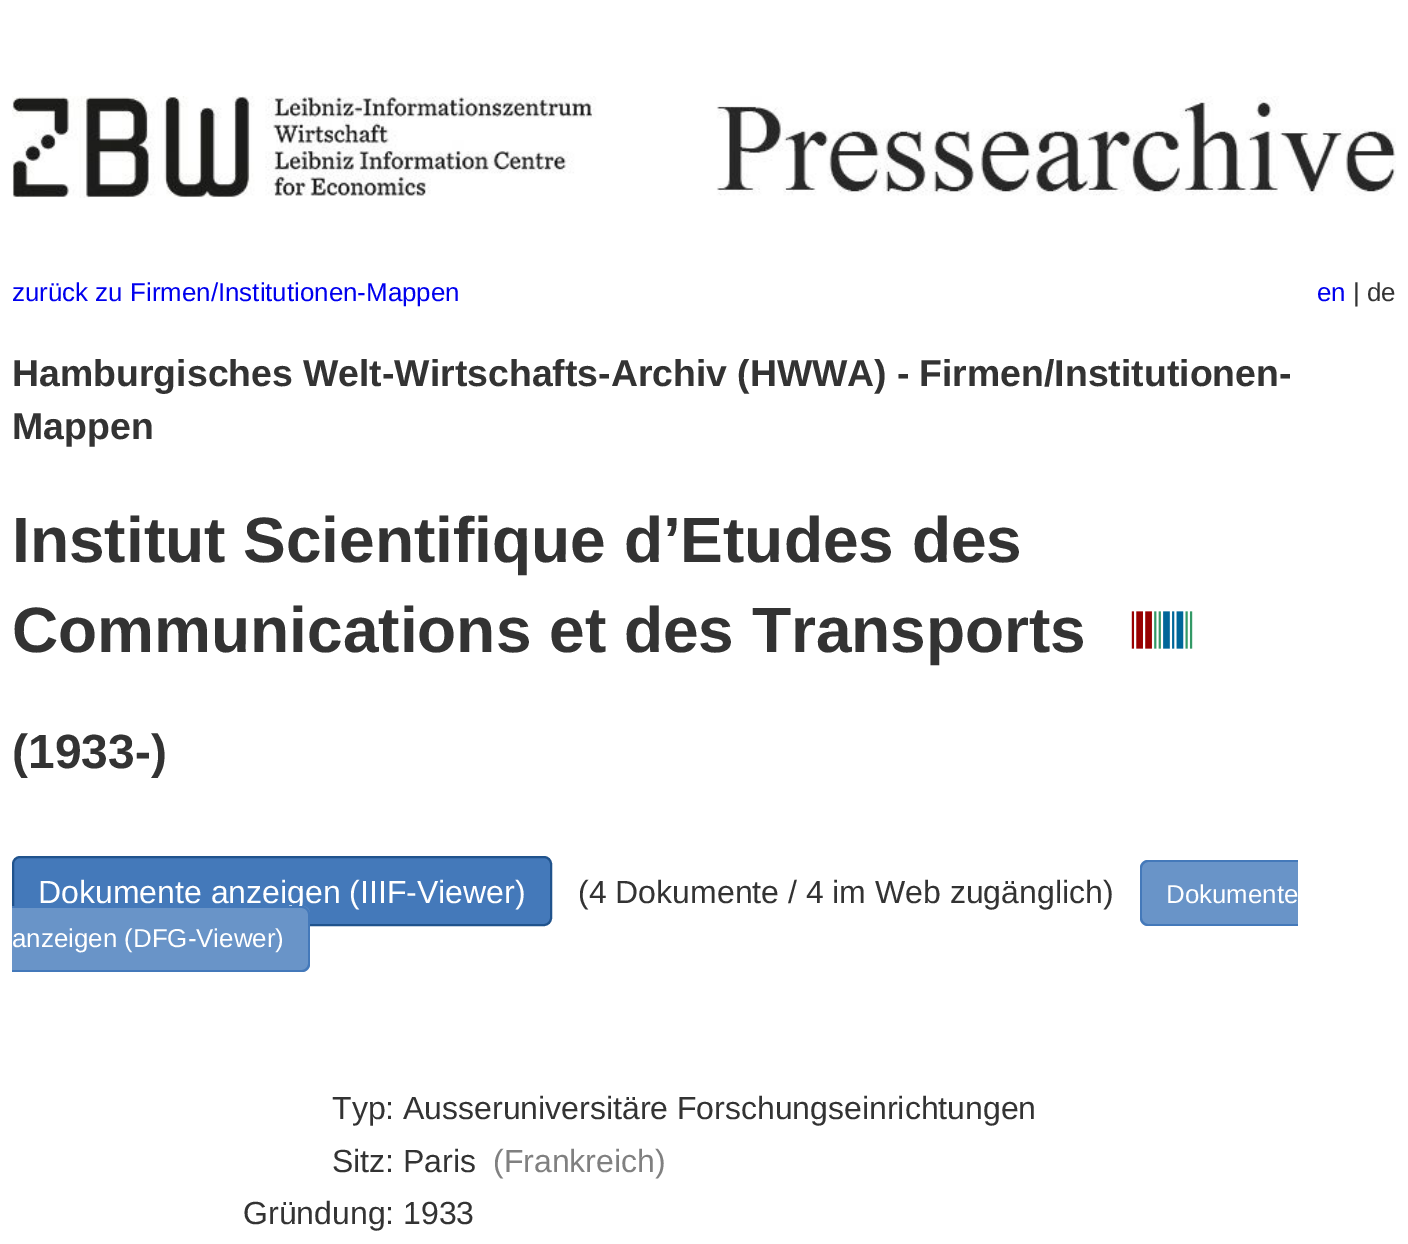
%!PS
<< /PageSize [1408 1244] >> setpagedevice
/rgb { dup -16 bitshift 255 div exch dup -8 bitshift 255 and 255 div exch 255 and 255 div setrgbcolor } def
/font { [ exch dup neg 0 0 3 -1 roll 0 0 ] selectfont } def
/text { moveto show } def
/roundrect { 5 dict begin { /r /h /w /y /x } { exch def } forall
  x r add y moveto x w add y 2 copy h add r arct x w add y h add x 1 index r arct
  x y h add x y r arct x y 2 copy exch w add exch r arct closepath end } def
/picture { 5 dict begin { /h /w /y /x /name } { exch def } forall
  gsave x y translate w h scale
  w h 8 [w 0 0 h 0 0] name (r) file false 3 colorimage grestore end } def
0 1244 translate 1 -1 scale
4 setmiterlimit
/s1 { /LiberationSans-Regular 25.9 font 16#0000EE rgb } def
/s2 { /LiberationSans-Regular 25.9 font 16#333333 rgb } def
/s3 { /LiberationSans-Bold 37.45 font 16#333333 rgb } def
/s4 { /LiberationSans-Bold 64 font 16#333333 rgb } def
/s5 { /LiberationSans-Bold 48 font 16#333333 rgb } def
/s6 { /LiberationSans-Regular 32 font 16#FFFFFF rgb } def
/s7 { /LiberationSans-Regular 32 font 16#333333 rgb } def
/s8 { /LiberationSans-Regular 25.9 font 16#FFFFFF rgb } def
/s9 { /LiberationSans-Regular 32 font 16#808080 rgb } def
16#FFFFFF rgb
0 0 1408 1244 rectfill
(pic1.raw) 12 96 1384 102 picture
s1
(zurück zu Firmen/Institutionen-Mappen) 12 301 text
(en) 1317 301 text
s2
(| de) 1353 301 text
/LiberationSans-Bold 37.45 font
12 386 moveto -0.5 0 32 (Hamburgisches Welt-Wirtschafts-Archiv \(HWWA\) - Firmen/Institutionen-) widthshow
(Mappen) 12 439 text
s4
(Institut Scientifique d’Etudes des) 12 562 text
(Communications et des Transports) 12 652 text
(pic2.raw) 1131 611 62 38 picture
s5
(\(1933-\)) 12 768 text
16#4479BA rgb
13 857 538 68 7 roundrect gsave fill grestore
16#20538D rgb
2 setlinewidth
stroke
s6
(Dokumente anzeigen \(IIIF-Viewer\)) 38 903 text
s7
(\(4 Dokumente / 4 im Web zugänglich\)) 578 903 text
16#6994C8 rgb
1148 860 moveto 1298 860 lineto 1298 926 lineto 1148 926 lineto 1143.5 926 1140 922.5 1140 918 curveto 1140 868 lineto 1140 863.5 1143.5 860 1148 860 curveto closepath fill
16#4479BA rgb
1148 860 moveto 1298 860 lineto 1298 926 lineto 1148 926 lineto 1144 926 1140 922 1140 918 curveto 1140 868 lineto 1140 864 1144 860 1148 860 curveto closepath 1148 862 moveto 1298 862 lineto 1298 924 lineto 1148 924 lineto 1145 924 1142 921 1142 918 curveto 1142 868 lineto 1142 865 1145 862 1148 862 curveto closepath eofill
s8
(Dokumente) 1166 903 text
16#6994C8 rgb
12 906 moveto 302 906 lineto 306.5 906 310 909.5 310 914 curveto 310 964 lineto 310 968.5 306.5 972 302 972 curveto 12 972 lineto closepath fill
16#4479BA rgb
12 906 moveto 302 906 lineto 306 906 310 910 310 914 curveto 310 964 lineto 310 968 306 972 302 972 curveto 12 972 lineto closepath 12 908 moveto 302 908 lineto 305 908 308 911 308 914 curveto 308 964 lineto 308 967 305 970 302 970 curveto 12 970 lineto closepath eofill
s8
(anzeigen \(DFG-Viewer\)) 12 947 text
s7
(Typ:) 332 1119 text
(Ausseruniversitäre Forschungseinrichtungen) 403 1119 text
(Sitz:) 332 1172 text
(Paris) 403 1172 text
s9
(\(Frankreich\)) 493 1172 text
s7
(Gründung:) 243 1224 text
(1933) 403 1224 text
showpage
